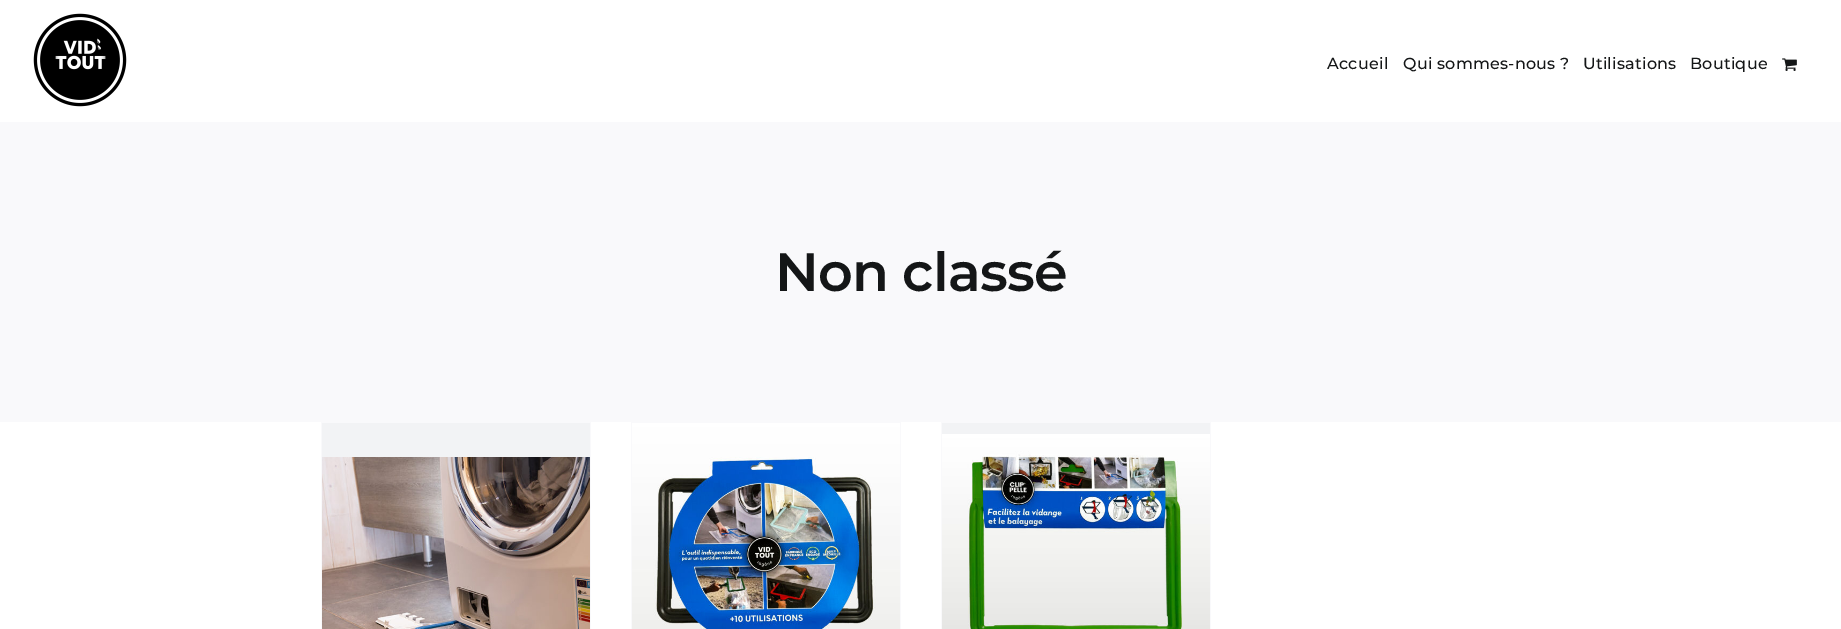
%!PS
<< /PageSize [1841 629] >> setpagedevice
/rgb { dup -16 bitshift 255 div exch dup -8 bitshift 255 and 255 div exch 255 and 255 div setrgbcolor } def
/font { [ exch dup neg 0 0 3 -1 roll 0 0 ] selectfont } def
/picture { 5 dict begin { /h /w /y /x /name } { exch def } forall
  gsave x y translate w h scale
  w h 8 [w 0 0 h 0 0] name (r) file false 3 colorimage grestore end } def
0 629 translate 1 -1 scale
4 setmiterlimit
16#FFFFFF rgb
0 0 1841 629 rectfill
(pic1.raw) 33 13 94 94 picture
/Montserrat-Medium 16 font
16#141617 rgb
1327 69 moveto 0.25 0 (Accueil) ashow
1403 69 moveto 0.25 0 (Qui sommes-nous ?) ashow
1583 69 moveto 0.25 0 (Utilisations) ashow
1690 69 moveto 0.25 0 (Boutique) ashow
(pic2.raw) 1782 58 15 13 picture
16#F9F9FB rgb
0 122 1841 300 rectfill
/Montserrat-SemiBold 54 font
16#141617 rgb
775 291 moveto -0.75 0 (Non classé) ashow
16#F9F9FB rgb
321 422 270 1 rectfill
590 422 1 207 rectfill
321 422 1 207 rectfill
16#F2F3F5 rgb
322 423 268 34 rectfill
(pic3.raw) 322 457 268 172 picture
16#F9F9FB rgb
631 422 270 1 rectfill
900 422 1 207 rectfill
631 422 1 207 rectfill
(pic4.raw) 632 423 268 206 picture
941 422 270 1 rectfill
1210 422 1 207 rectfill
941 422 1 207 rectfill
16#F2F3F5 rgb
942 423 268 11 rectfill
(pic5.raw) 942 434 268 195 picture
showpage
